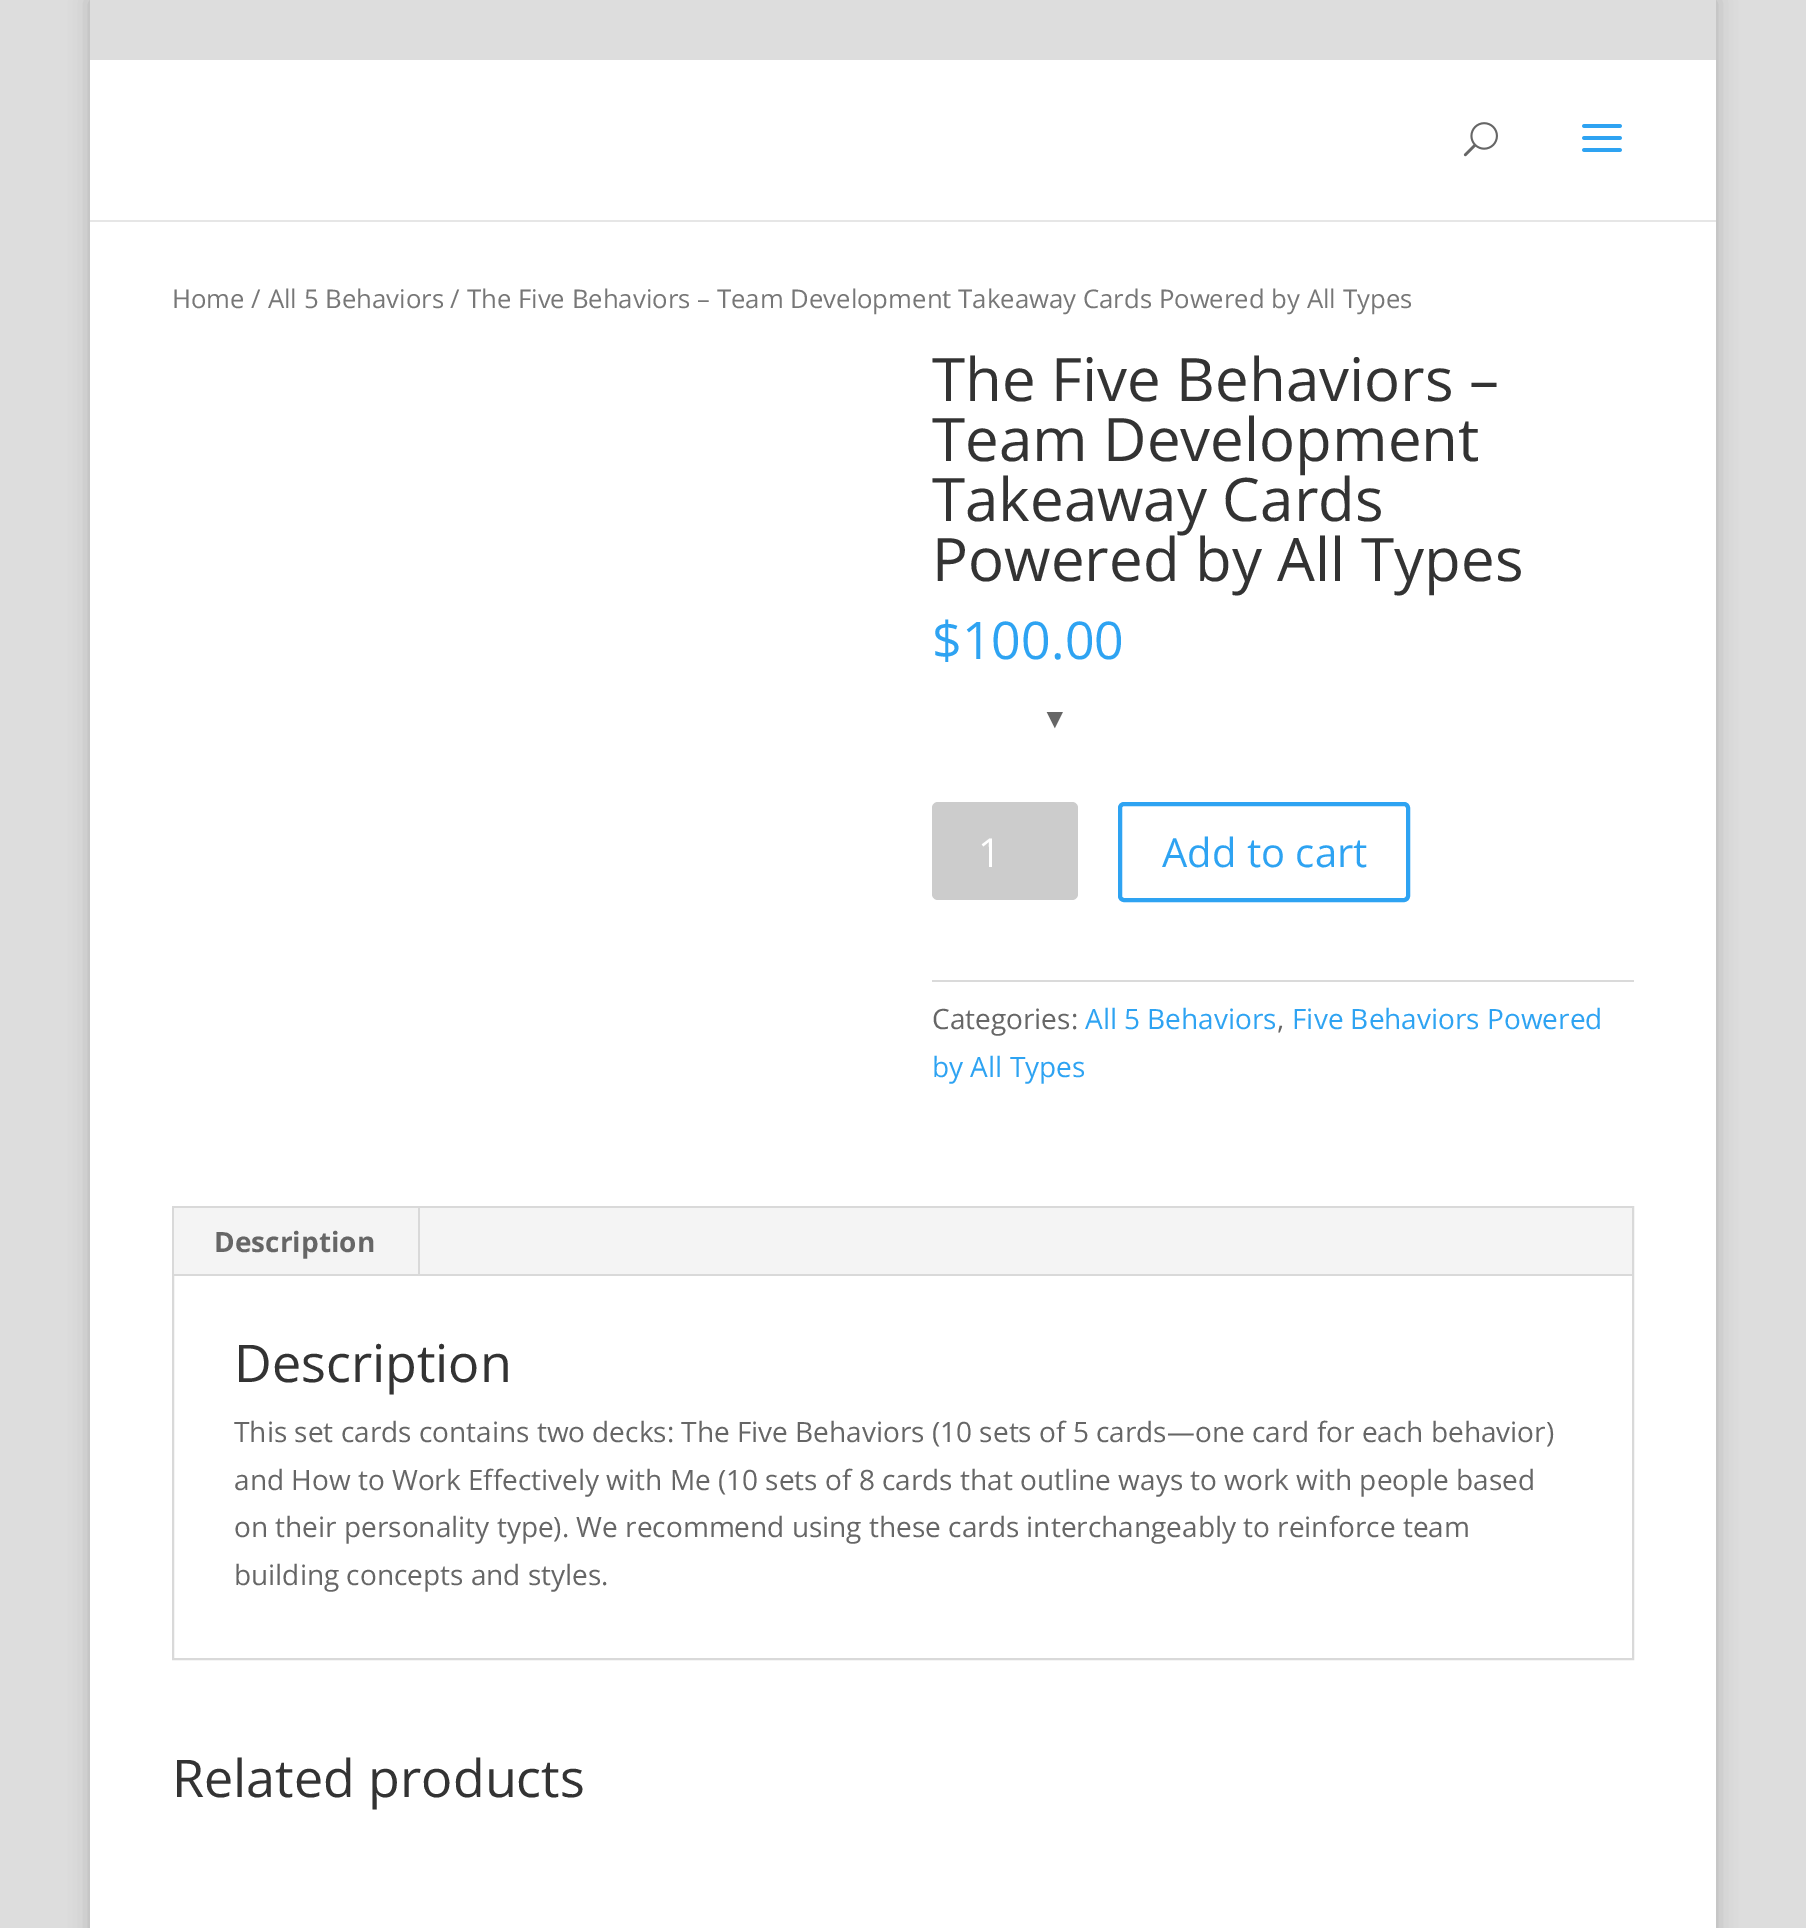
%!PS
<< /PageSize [1806 1928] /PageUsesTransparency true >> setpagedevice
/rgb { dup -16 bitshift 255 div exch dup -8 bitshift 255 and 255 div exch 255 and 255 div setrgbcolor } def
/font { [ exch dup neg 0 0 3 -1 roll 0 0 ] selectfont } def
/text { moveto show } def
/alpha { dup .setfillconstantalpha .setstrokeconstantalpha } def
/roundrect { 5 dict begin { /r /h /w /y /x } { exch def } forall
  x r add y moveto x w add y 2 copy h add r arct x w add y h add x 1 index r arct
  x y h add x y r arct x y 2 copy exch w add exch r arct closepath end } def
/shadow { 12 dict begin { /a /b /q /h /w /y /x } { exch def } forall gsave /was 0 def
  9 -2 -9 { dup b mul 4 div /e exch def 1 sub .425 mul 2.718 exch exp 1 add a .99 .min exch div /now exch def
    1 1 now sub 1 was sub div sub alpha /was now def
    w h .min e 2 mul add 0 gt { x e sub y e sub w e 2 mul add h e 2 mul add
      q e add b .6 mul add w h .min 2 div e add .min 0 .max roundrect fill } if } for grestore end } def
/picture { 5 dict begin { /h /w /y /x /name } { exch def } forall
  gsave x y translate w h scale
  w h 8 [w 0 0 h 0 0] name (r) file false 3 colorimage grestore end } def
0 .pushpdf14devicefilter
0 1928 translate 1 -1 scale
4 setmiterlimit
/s1 { /OpenSans-Regular 25.75 font 16#777777 rgb } def
/s2 { /OpenSans-Regular 60 font 16#333333 rgb } def
/s3 { /OpenSans-Regular 52 font 16#2EA3F2 rgb } def
/s4 { /LiberationSans-Regular 28 font 16#666666 rgb } def
/s5 { /OpenSans-Regular 40 font 16#FFFFFF rgb } def
/s6 { /OpenSans-Regular 40 font 16#2EA3F2 rgb } def
/s7 { /OpenSans-Regular 28 font 16#666666 rgb } def
/s8 { /OpenSans-Regular 28 font 16#2EA3F2 rgb } def
/s9 { /OpenSans-Bold 28 font 16#666666 rgb } def
/s10 { /OpenSans-Regular 52 font 16#333333 rgb } def
16#DDDDDD rgb
0 0 1806 1928 rectfill
gsave
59 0 moveto 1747 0 lineto 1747 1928 lineto 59 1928 lineto closepath 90 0 moveto 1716 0 lineto 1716 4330 lineto 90 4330 lineto closepath eoclip newpath
16#000000 rgb
90 0 1626 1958 0 10 0.2 shadow
grestore
16#E6E6E6 rgb
90 220 1626 2 rectfill
16#FFFFFF rgb
90 60 1626 160 rectfill
(pic1.raw) 1463 122 35 35 picture
(pic2.raw) 1582 124 40 28 picture
90 222 1626 1706 rectfill
s1
(Home / All 5 Behaviors / The Five Behaviors – Team Development Takeaway Cards Powered by All Types) 172 308 text
s2
(The Five Behaviors –) 932 401 text
(Team Development) 932 461 text
(Takeaway Cards) 932 521 text
(Powered by All Types) 932 581 text
s3
($100.00) 932 659 text
s4
(▼) 1041 728 text
16#CCCCCC rgb
932 802 146 98 6 roundrect fill
s5
(1) 978 867 text
16#2EA3F2 rgb
4 setlinewidth
1120 804 288 96 4 roundrect stroke
(Add to cart) 1162 867 text
16#DADADA rgb
932 980 702 2 rectfill
s7
(Categories:) 932 1029 text
s8
(All 5 Behaviors) 1085 1029 text
s7
(,) 1277 1029 text
s8
(Five Behaviors Powered) 1292 1029 text
(by All Types) 932 1077 text
16#D9D9D9 rgb
2 setlinewidth
173 1207 1460 452 rectstroke
16#F4F4F4 rgb
174 1208 1458 66 rectfill
16#D9D9D9 rgb
418 1208 2 68 rectfill
s9
(Description) 214 1252 text
16#D9D9D9 rgb
174 1274 1458 2 rectfill
s10
(Description) 234 1382 text
s7
(This set cards contains two decks: The Five Behaviors \(10 sets of 5 cards—one card for each behavior\)) 234 1442 text
(and How to Work Effectively with Me \(10 sets of 8 cards that outline ways to work with people based) 234 1490 text
(on their personality type\). We recommend using these cards interchangeably to reinforce team) 234 1537 text
(building concepts and styles.) 234 1585 text
s10
(Related products) 172 1797 text
.poppdf14devicefilter showpage
